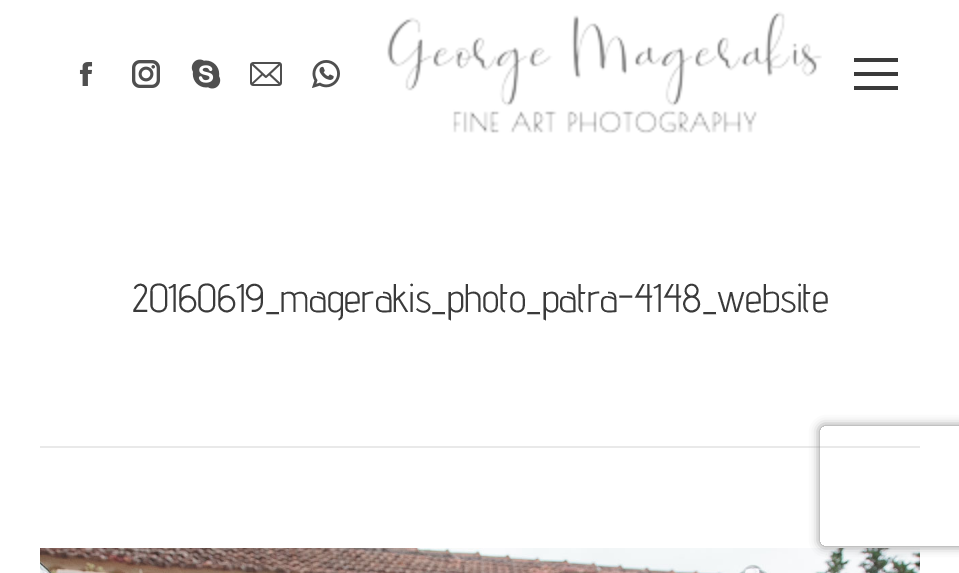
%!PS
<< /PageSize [959 573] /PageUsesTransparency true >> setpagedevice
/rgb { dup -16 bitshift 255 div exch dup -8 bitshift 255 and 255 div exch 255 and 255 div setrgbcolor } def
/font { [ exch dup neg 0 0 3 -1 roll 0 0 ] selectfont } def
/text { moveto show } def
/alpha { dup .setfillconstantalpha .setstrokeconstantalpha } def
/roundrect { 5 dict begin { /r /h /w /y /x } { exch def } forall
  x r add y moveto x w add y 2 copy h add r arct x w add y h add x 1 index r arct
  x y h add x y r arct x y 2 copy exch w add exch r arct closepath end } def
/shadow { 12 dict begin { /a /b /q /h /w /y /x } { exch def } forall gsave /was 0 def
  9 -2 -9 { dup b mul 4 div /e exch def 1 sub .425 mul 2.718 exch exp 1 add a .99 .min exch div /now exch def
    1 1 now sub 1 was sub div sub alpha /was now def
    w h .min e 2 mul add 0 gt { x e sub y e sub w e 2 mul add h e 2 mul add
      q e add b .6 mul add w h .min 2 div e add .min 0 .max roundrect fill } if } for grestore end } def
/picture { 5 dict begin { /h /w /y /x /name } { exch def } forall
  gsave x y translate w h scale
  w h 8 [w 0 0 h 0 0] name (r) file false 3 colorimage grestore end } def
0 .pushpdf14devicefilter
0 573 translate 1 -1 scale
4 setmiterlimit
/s1 { /AdventPro-Regular 40 font 16#3A3A3A rgb } def
16#FFFFFF rgb
0 0 959 573 rectfill
(pic1.raw) 79 62 14 24 picture
(pic2.raw) 132 60 28 28 picture
(pic3.raw) 191 59 30 30 picture
(pic4.raw) 250 62 32 24 picture
(pic5.raw) 312 60 28 28 picture
(pic6.raw) 387 11 435 123 picture
16#3A3A3A rgb
854 58 44 4 rectfill
854 72 44 4 rectfill
854 86 44 4 rectfill
s1
(20160619_magerakis_photo_patra-4148_website) 132 312 text
16#E9E9E9 rgb
40 446 880 2 rectfill
(pic7.raw) 40 548 880 25 picture
gsave
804 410 moveto 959 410 lineto 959 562 lineto 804 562 lineto closepath 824 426 moveto 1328 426 lineto 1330 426 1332 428 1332 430 curveto 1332 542 lineto 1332 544 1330 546 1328 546 curveto 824 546 lineto 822 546 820 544 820 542 curveto 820 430 lineto 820 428 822 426 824 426 curveto closepath eoclip newpath
16#808080 rgb
820 426 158 120 4 5 1 shadow
grestore
.poppdf14devicefilter showpage
